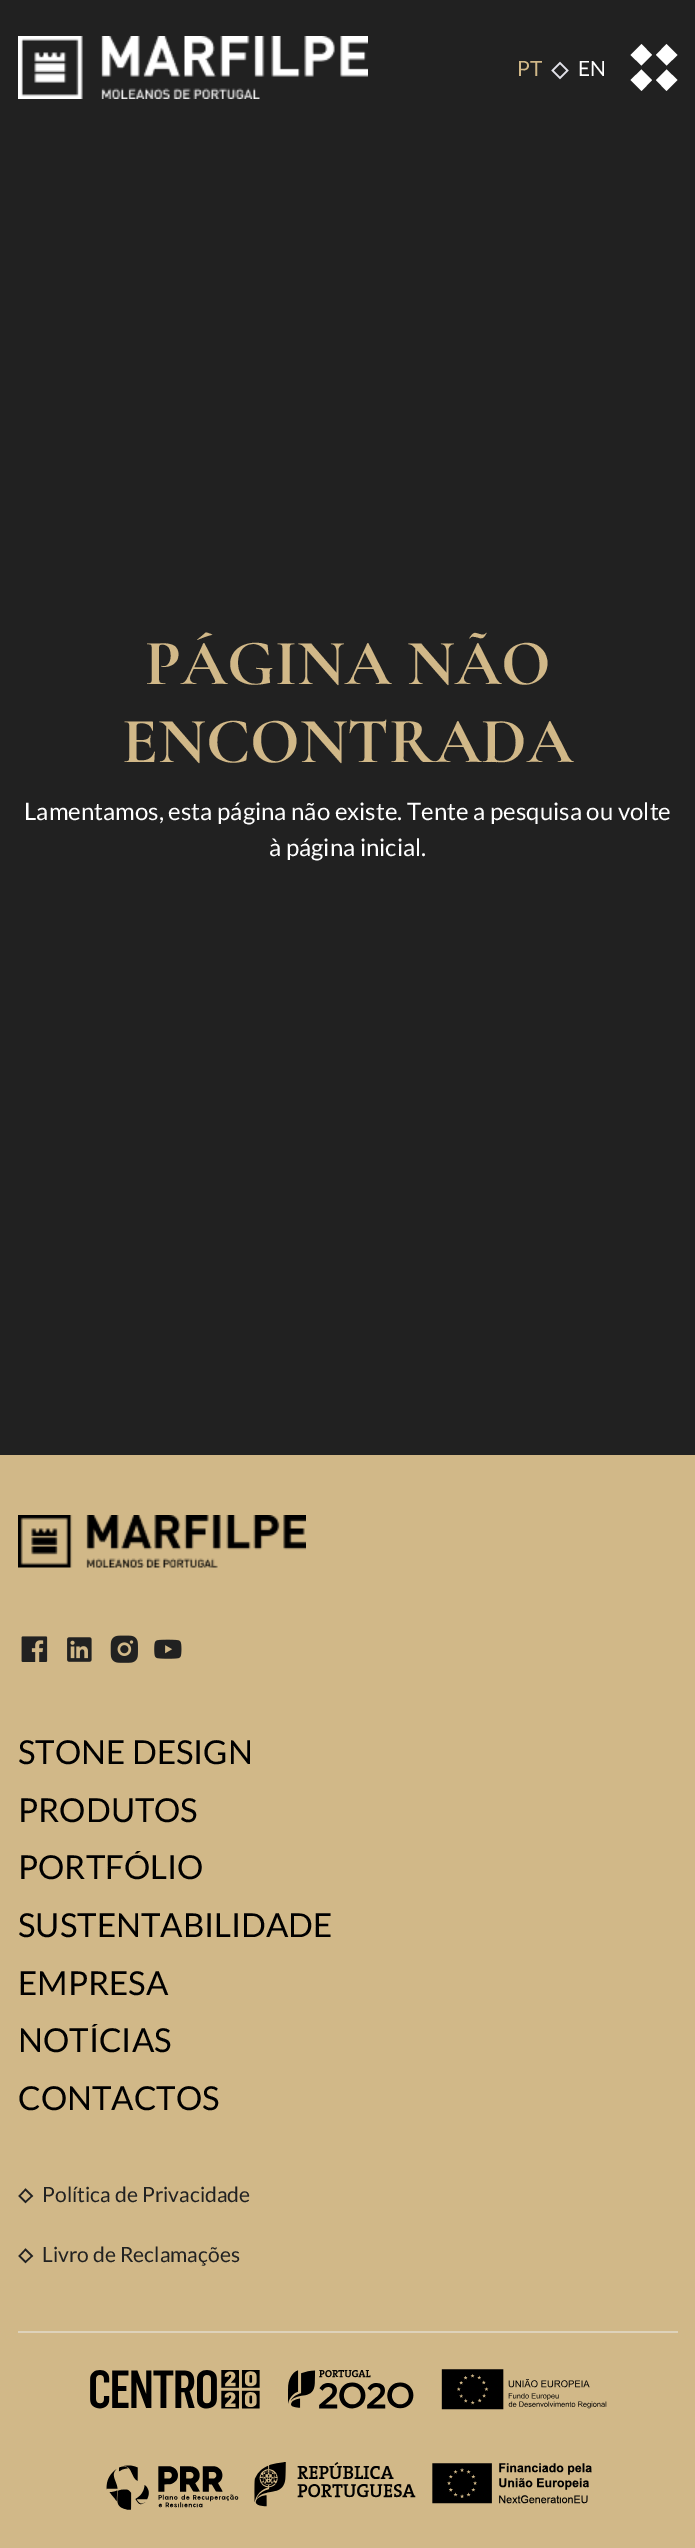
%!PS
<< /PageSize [695 2548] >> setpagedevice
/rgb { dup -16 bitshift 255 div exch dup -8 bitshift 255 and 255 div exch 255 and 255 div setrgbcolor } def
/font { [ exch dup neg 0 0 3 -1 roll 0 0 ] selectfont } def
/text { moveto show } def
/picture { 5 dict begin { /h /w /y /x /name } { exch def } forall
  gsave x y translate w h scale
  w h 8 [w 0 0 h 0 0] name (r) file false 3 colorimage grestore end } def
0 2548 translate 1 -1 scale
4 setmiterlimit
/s1 { /Lato-Regular 21 font 16#D1B888 rgb } def
/s2 { /Lato-Regular 21 font 16#FFFFFF rgb } def
/s3 { /CormorantGaramond-Bold 65 font 16#D1B888 rgb } def
/s4 { /Lato-Regular 24 font 16#FFFFFF rgb } def
/s5 { /Lato-Regular 33 font 16#000000 rgb } def
/s6 { /Lato-Regular 21 font 16#212121 rgb } def
16#212121 rgb
0 0 695 2548 rectfill
(pic1.raw) 18 36 350 63 picture
s1
(PT) 517 76 text
16#E1E1E8 rgb
1.5 setlinewidth
560 63 moveto 567.5 70.5 lineto 560 78 lineto 552.5 70.5 lineto closepath stroke
s2
(EN) 578 76 text
666.5 44 moveto 677.5 55 lineto 666.5 65.5 lineto 656 55 lineto closepath 641.5 69.5 moveto 652 80 lineto 641.5 91 lineto 630.5 80 lineto closepath fill
641.5 44 moveto 652 55 lineto 641.5 65.5 lineto 630.5 55 lineto closepath 666.5 69.5 moveto 677.5 80 lineto 666.5 91 lineto 656 80 lineto closepath fill
s3
(PÁGINA NÃO) 145 684 text
(ENCONTRADA) 122 762 text
s4
(Lamentamos, esta página não existe. Tente a pesquisa ou volte) 24 820 text
(à página inicial.) 269 856 text
16#D1B888 rgb
0 1455 695 1093 rectfill
(pic2.raw) 18 1515 288 53 picture
(pic3.raw) 21 1636 27 26 picture
(pic4.raw) 67 1637 25 25 picture
(pic5.raw) 110 1635 28 28 picture
(pic6.raw) 154 1639 28 20 picture
s5
(STONE DESIGN) 18 1764 text
(PRODUTOS) 18 1822 text
gsave
12 1851 672 33 rectclip
(PORTFÓLIO) 18 1879 text
grestore
(SUSTENTABILIDADE) 18 1937 text
(EMPRESA) 18 1995 text
gsave
12 2024 672 34 rectclip
(NOTÍCIAS) 18 2052 text
grestore
(CONTACTOS) 18 2110 text
16#212121 rgb
25.5 2189.5 moveto 32 2196 lineto 25.5 2202 lineto 19.5 2196 lineto closepath stroke
s6
(Política de Privacidade) 42 2202 text
25.5 2249.5 moveto 32 2256 lineto 25.5 2262 lineto 19.5 2256 lineto closepath stroke
(Livro de Reclamações) 42 2262 text
16#DED2BA rgb
18 2331 660 2 rectfill
(pic7.raw) 90 2369 517 41 picture
(pic8.raw) 106 2462 486 48 picture
showpage
